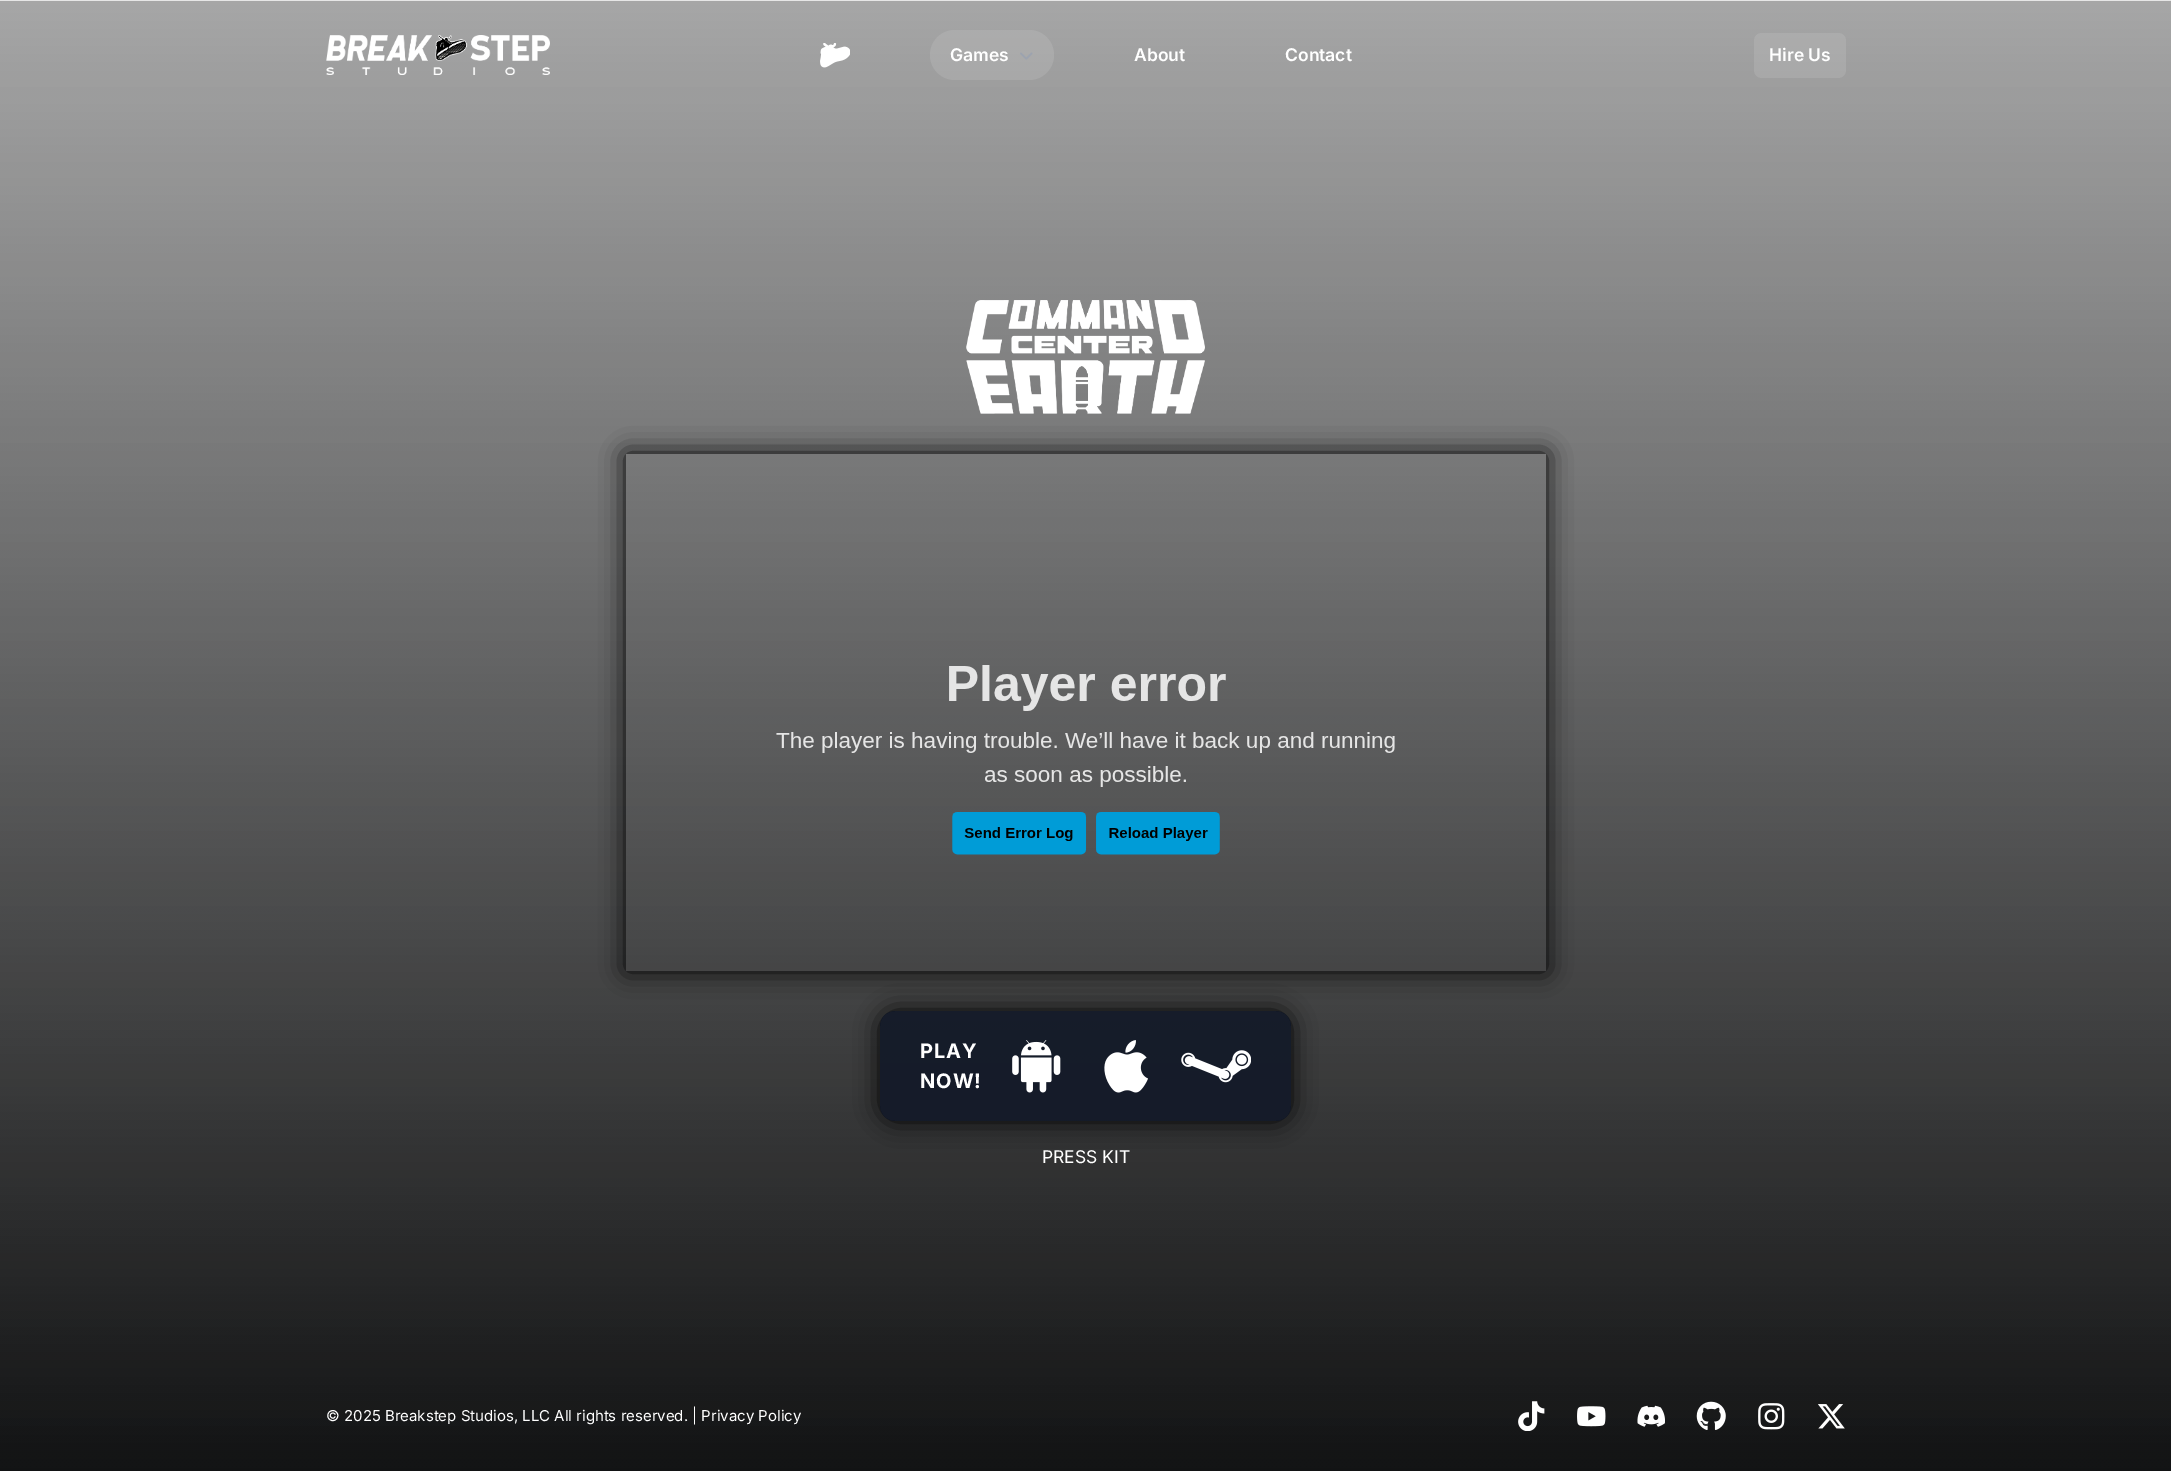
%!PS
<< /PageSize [2171 1471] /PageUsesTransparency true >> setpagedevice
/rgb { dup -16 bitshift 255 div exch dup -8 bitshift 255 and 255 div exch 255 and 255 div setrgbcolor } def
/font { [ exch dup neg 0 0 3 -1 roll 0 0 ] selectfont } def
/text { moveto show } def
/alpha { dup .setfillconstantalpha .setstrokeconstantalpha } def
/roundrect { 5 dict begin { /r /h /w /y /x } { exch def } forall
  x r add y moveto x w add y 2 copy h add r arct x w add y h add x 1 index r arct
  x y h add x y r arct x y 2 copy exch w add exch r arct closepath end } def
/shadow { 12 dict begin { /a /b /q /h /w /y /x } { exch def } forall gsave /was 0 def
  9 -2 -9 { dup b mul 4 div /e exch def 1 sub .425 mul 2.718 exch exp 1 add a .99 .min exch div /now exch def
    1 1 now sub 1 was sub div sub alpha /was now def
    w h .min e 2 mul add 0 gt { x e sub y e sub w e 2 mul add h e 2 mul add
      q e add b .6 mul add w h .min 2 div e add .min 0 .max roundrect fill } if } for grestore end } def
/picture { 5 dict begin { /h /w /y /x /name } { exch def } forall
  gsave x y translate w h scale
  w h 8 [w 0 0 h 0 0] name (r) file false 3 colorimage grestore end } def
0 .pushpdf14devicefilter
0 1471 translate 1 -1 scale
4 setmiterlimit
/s1 { /Inter-SemiBold 17.5 font 16#FFFFFF rgb } def
/s2 { /Inter-Regular 17.5 font 16#FFFFFF rgb } def
/s3 { /Inter-Regular 15 font 16#FFFFFF rgb } def
16#E6E6E6 rgb
0 0 2171 1471 rectfill
(pic4.raw) 0 1 2171 1470 picture
(pic1.raw) 326 35 224 40 picture
(pic2.raw) 820 43 30 25 picture
0.1 alpha
16#FFFFFF rgb
930 30 124 50 25 roundrect fill
1 alpha
s1
(Games) 950 61 text
(pic3.raw) 1020 52 13 8 picture
(About) 1134 61 text
(Contact) 1285 61 text
0.1 alpha
1754 33 92 45 8 roundrect fill
1 alpha
(Hire Us) 1769 61 text
(pic5.raw) 966 300 239 114 picture
gsave
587 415 moveto 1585 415 lineto 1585 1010 lineto 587 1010 lineto closepath 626 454 moveto 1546 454 lineto 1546 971 lineto 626 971 lineto closepath eoclip newpath
16#000000 rgb
626 454 920 517 0 12.5 1 shadow
grestore
gsave
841 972 moveto 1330 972 lineto 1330 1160 lineto 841 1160 lineto closepath 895 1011 moveto 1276 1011 lineto 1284.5 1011 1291 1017.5 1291 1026 curveto 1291 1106 lineto 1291 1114.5 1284.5 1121 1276 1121 curveto 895 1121 lineto 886.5 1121 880 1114.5 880 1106 curveto 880 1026 lineto 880 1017.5 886.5 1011 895 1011 curveto closepath eoclip newpath
16#000000 rgb
880 1011 411 110 15 12.5 1 shadow
grestore
0.9 alpha
16#111827 rgb
880 1011 411 110 15 roundrect fill
/Inter-Bold 20 font
1 alpha
16#FFFFFF rgb
920 1058 moveto 1 0 (PLAY) ashow
920 1088 moveto 1 0 (NOW!) ashow
(pic6.raw) 1012 1040 49 53 picture
(pic7.raw) 1104 1040 44 53 picture
(pic8.raw) 1181 1050 70 33 picture
s2
(PRESS KIT) 1042 1163 text
s3
(© 2025 Breakstep Studios, LLC All rights reserved. | Privacy Policy) 326 1421 text
(pic9.raw) 1518 1401 27 30 picture
(pic10.raw) 1577 1406 29 21 picture
(pic11.raw) 1637 1405 28 22 picture
(pic12.raw) 1696 1401 30 29 picture
(pic13.raw) 1758 1403 27 27 picture
(pic14.raw) 1818 1404 27 25 picture
.poppdf14devicefilter showpage
